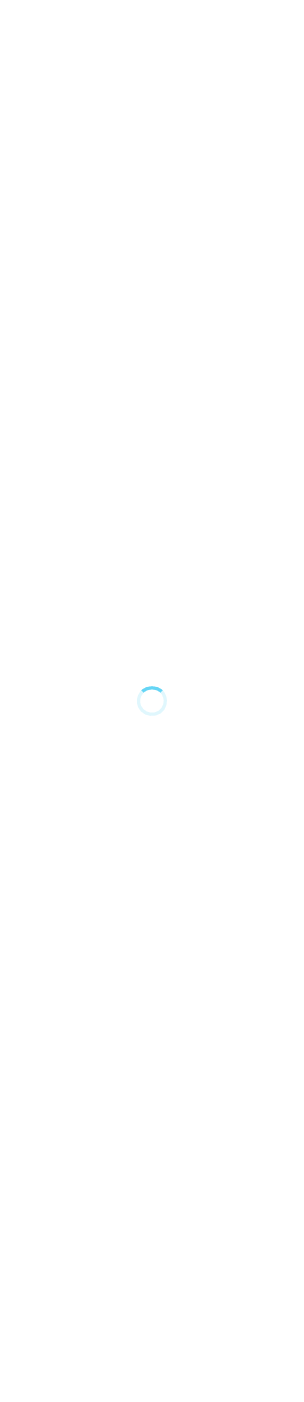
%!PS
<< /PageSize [304 1402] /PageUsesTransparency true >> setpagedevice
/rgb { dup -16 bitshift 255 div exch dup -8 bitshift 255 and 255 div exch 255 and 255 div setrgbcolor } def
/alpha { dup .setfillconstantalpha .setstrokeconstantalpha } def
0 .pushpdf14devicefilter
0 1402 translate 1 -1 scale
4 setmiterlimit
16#FFFFFF rgb
0 0 304 1402 rectfill
16#65D5F5 rgb
3 setlinewidth
142.5 691.5 moveto 147.5 686.5 156.5 686.5 161.5 691.5 curveto stroke
0.2 alpha
161.5 691.5 moveto 164.5 694.5 166 699.5 165 703.5 curveto 162 719.5 138.5 717 138.5 701 curveto 138.5 697.5 140 694 142.5 691.5 curveto stroke
.poppdf14devicefilter showpage
